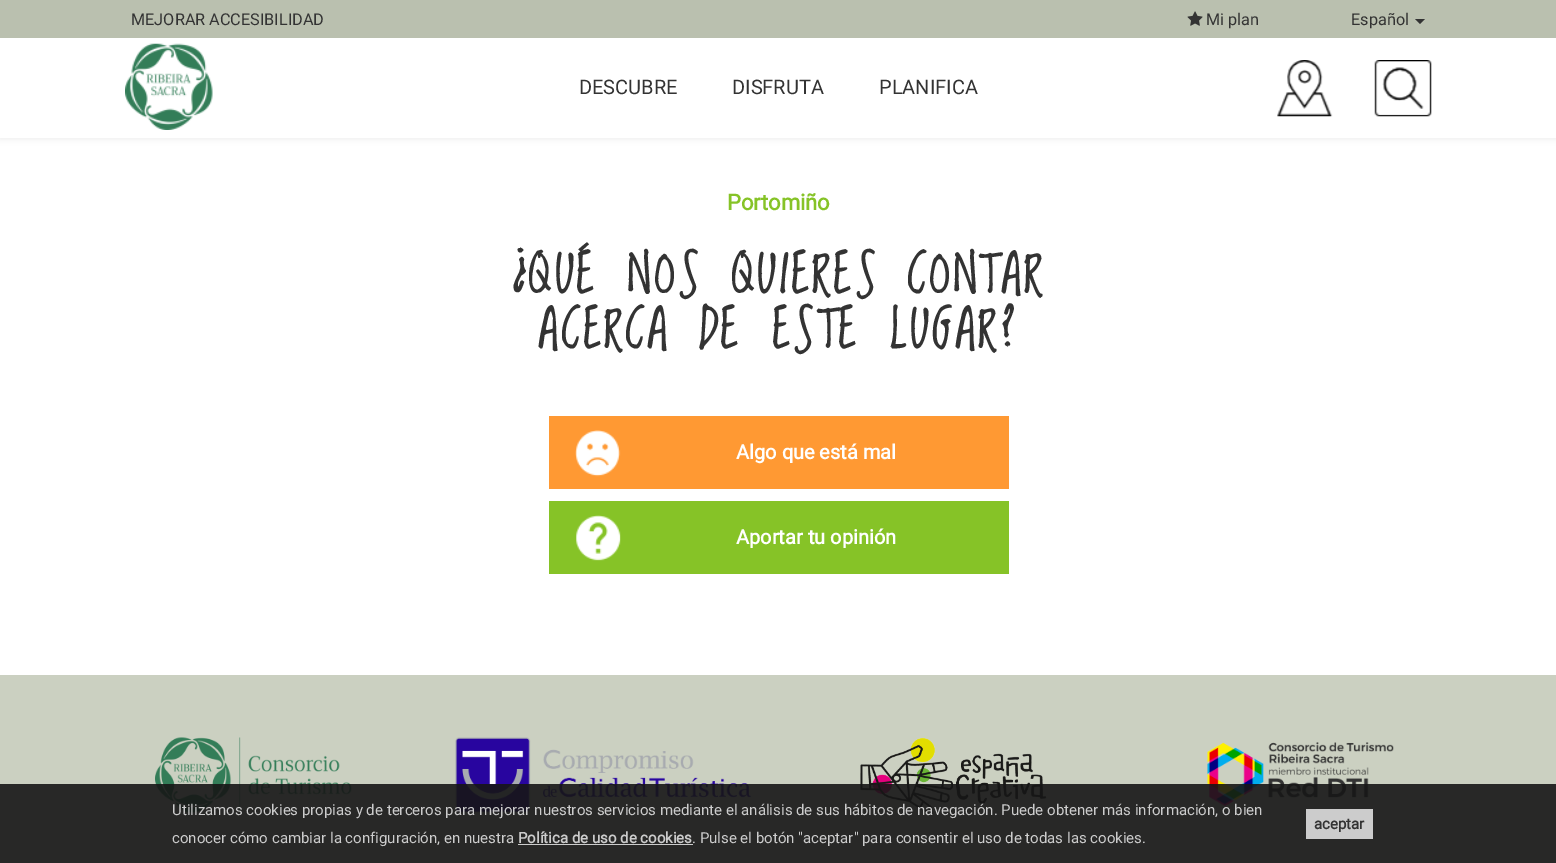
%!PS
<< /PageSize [1556 863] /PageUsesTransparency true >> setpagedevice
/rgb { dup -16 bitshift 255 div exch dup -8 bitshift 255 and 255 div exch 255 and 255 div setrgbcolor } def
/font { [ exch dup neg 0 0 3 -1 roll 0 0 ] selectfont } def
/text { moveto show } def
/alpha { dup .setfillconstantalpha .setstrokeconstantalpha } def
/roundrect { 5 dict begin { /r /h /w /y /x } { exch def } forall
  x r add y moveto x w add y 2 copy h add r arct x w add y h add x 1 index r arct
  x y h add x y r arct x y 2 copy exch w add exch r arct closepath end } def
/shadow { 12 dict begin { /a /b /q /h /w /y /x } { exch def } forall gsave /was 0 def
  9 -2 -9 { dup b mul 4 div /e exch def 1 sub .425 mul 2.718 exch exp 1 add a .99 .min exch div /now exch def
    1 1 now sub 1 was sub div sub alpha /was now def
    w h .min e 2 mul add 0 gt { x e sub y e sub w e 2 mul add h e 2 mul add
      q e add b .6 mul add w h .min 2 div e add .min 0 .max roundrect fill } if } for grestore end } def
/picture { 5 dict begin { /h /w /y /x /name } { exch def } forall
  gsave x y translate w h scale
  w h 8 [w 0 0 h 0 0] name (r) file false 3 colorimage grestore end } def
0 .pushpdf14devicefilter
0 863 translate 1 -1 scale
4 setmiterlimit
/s1 { /Roboto-Regular 16.25 font 16#333333 rgb } def
/s2 { /Roboto-Regular 20 font 16#333333 rgb } def
/s3 { /Roboto-Bold 22 font 16#86C327 rgb } def
/s4 { /Roboto-Bold 20 font 16#FFFFFF rgb } def
/s5 { /Roboto-Regular 15 font 16#CCCCCC rgb } def
/s6 { /Roboto-Bold 15 font 16#333333 rgb } def
/s7 { /Roboto-Bold 15 font 16#CCCCCC rgb } def
16#FFFFFF rgb
0 0 1556 863 rectfill
16#000000 rgb
0 1 1556 138 0 3 0.07 shadow
16#FFFFFF rgb
0 38 1556 100 rectfill
16#BAC0AF rgb
0 0 1556 38 rectfill
s1
(MEJORAR ACCESIBILIDAD) 131 25 text
(pic1.raw) 1187 11 16 15 picture
(Mi plan) 1206 25 text
(Español) 1351 25 text
1415 19 moveto 1425 19 lineto 1420 24 lineto closepath fill
(pic2.raw) 125 43 88 87 picture
s2
(DESCUBRE) 579 94 text
(DISFRUTA) 732 94 text
(PLANIFICA) 879 94 text
(pic3.raw) 1277 60 56 57 picture
(pic4.raw) 1374 60 58 57 picture
s3
(Portomiño) 727 210 text
/LovedbytheKing-Bold 50 font
16#333333 rgb
512 293 moveto 3.75 0 (¿QUÉ NOS QUIERES CONTAR) ashow
538 348 moveto 3.75 0 (ACERCA DE ESTE LUGAR?) ashow
16#FF9933 rgb
549 416 460 73 rectfill
(pic5.raw) 575 430 46 47 picture
s4
(Algo que está mal) 736 459 text
16#86C327 rgb
549 501 460 73 rectfill
(pic6.raw) 576 515 45 46 picture
s4
(Aportar tu opinión) 736 544 text
16#CBD0C1 rgb
0 675 1556 188 rectfill
(pic7.raw) 155 737 197 76 picture
(pic8.raw) 455 737 297 76 picture
(pic9.raw) 860 738 187 75 picture
(pic10.raw) 1207 742 187 64 picture
0.9 alpha
16#161616 rgb
0 784 1556 79 rectfill
1 alpha
s5
(Utilizamos cookies propias y de terceros para mejorar nuestros servicios mediante el análisis de sus hábitos de navegación. Puede obtener más información, o bien) 172 815 text
1306 809 67 30 rectfill
s6
(aceptar) 1314 829 text
s5
(conocer cómo cambiar la configuración, en nuestra) 172 843 text
s7
(Política de uso de cookies) 518 843 text
s5
(. Pulse el botón "aceptar" para consentir el uso de todas las cookies.) 692 843 text
518 844 175 1 rectfill
.poppdf14devicefilter showpage
